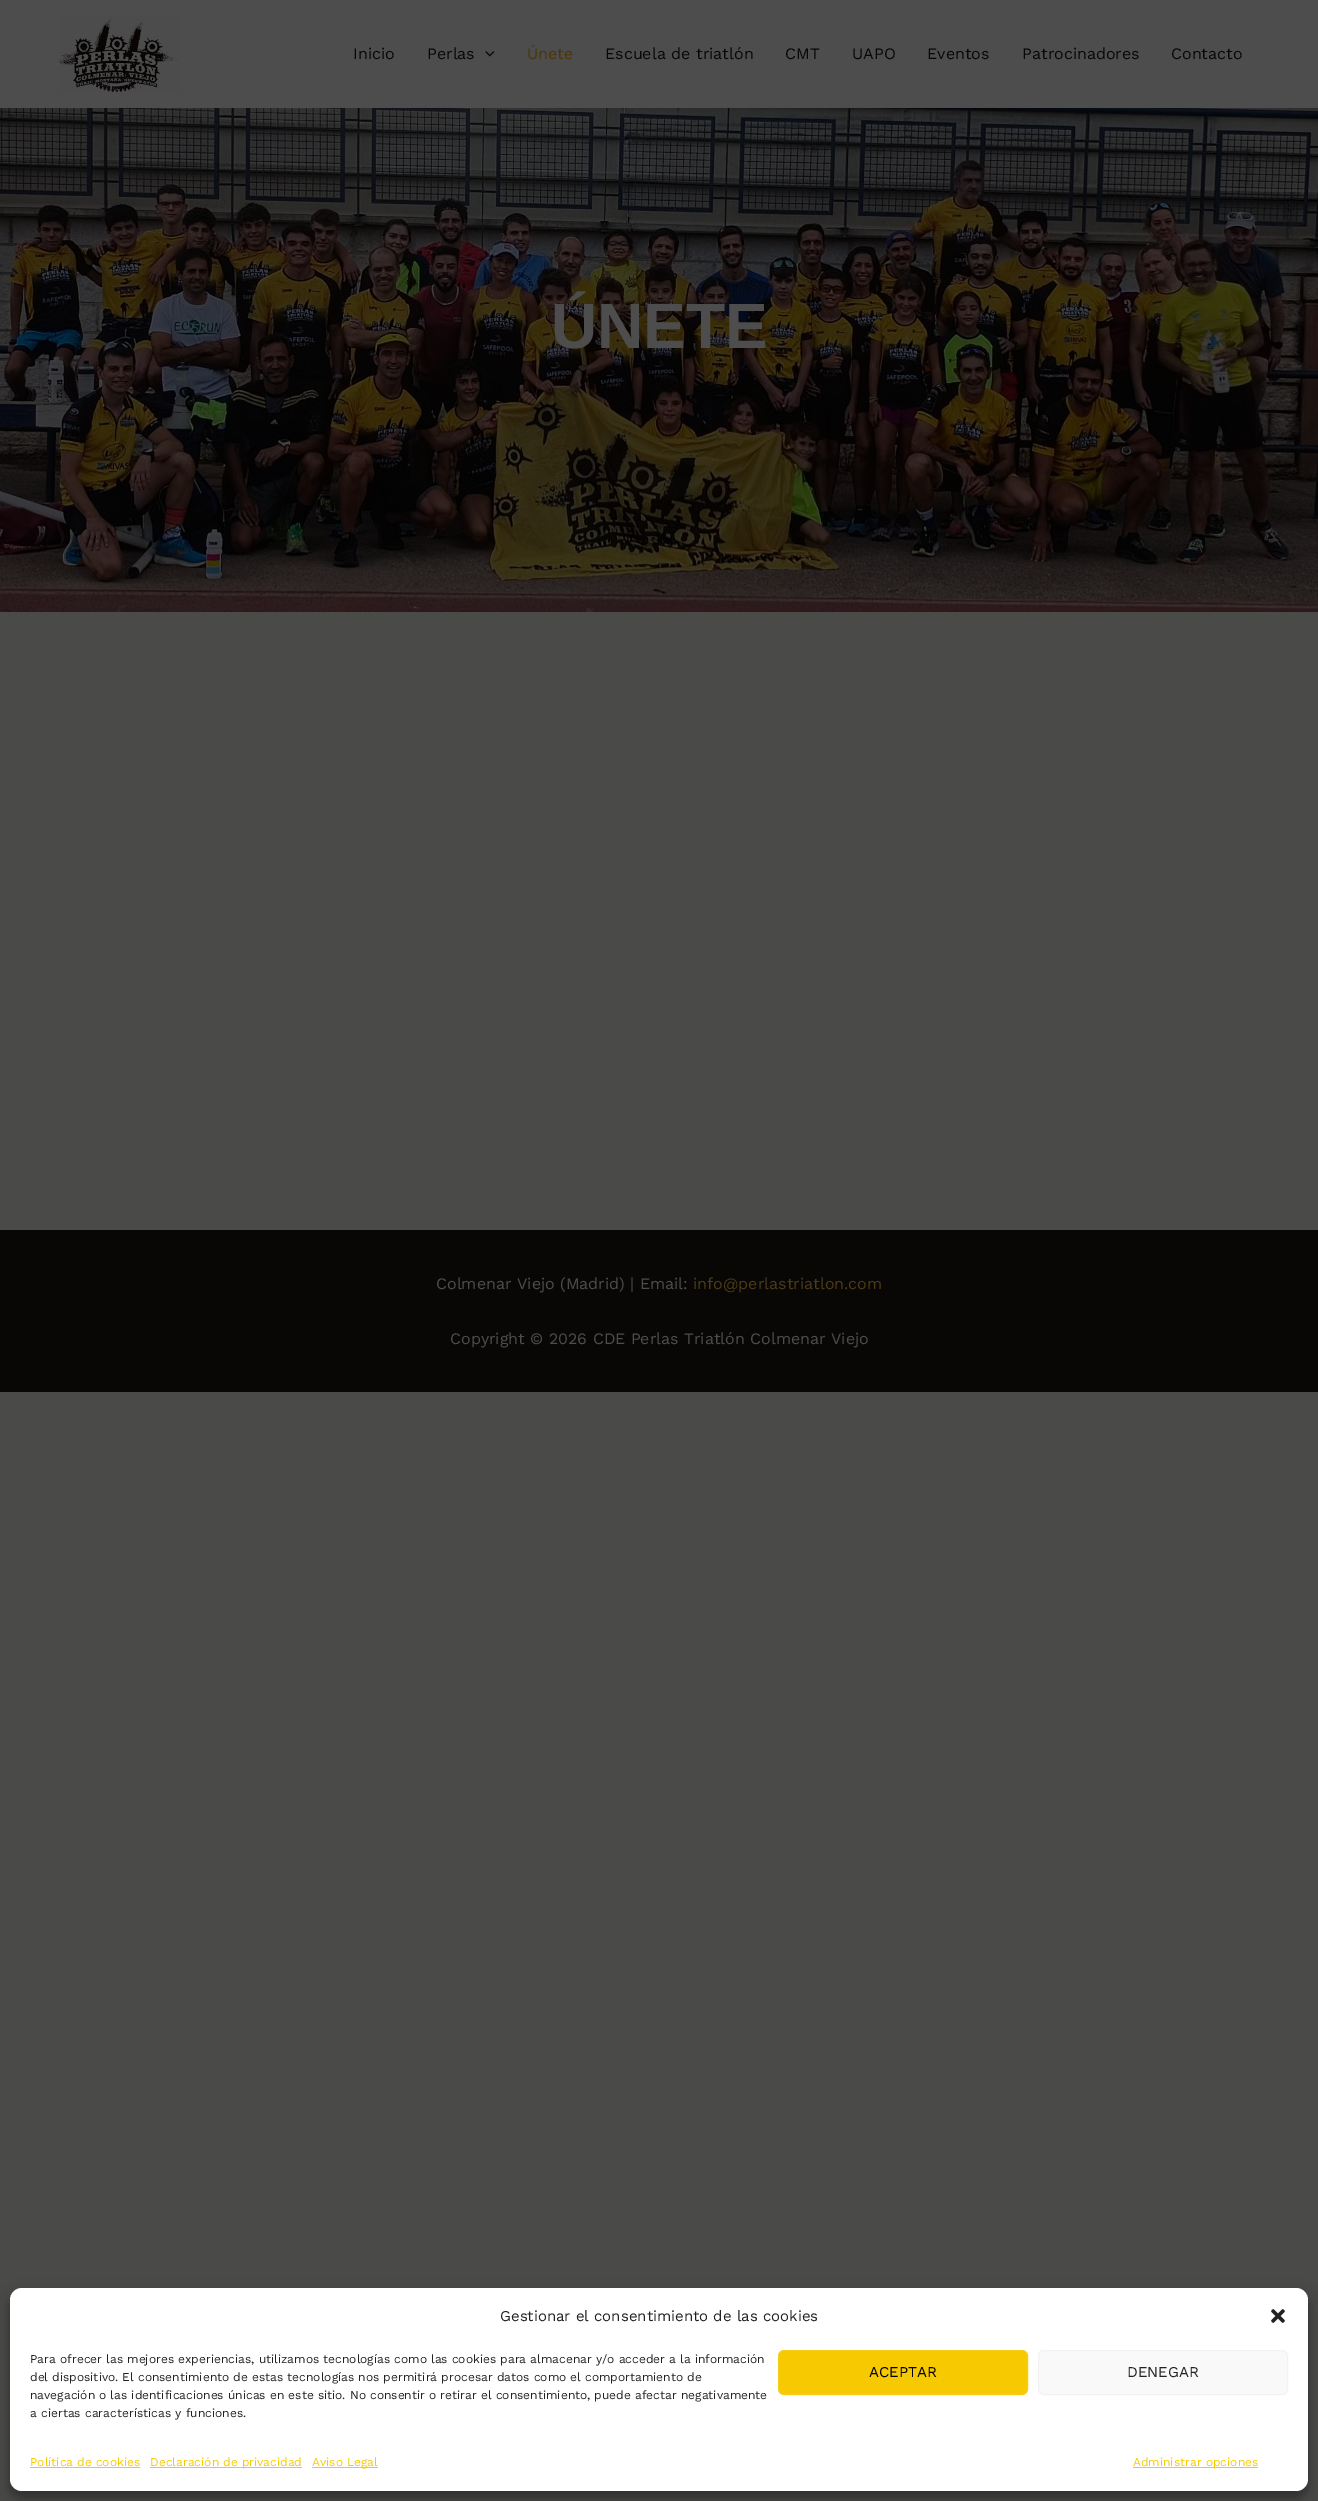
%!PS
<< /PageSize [1318 2501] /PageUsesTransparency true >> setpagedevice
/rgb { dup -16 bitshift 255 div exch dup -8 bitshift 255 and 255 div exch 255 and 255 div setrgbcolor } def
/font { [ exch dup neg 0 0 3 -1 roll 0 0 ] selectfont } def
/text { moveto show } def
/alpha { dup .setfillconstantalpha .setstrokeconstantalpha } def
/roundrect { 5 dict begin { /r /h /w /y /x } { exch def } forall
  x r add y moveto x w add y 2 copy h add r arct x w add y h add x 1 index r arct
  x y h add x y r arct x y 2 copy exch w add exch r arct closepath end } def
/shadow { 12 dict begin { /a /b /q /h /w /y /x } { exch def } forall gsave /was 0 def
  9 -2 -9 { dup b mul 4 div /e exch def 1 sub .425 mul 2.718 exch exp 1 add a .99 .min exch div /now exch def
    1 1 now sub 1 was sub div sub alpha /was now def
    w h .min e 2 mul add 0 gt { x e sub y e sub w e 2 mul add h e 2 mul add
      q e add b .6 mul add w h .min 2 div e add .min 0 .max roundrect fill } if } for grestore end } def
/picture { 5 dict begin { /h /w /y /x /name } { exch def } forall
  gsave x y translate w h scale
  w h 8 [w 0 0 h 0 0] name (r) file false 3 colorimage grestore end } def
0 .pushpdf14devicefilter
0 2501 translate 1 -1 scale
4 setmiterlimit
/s1 { /WorkSans-Regular 16 font 16#090705 rgb } def
/s2 { /WorkSans-Regular 16 font 16#4D3500 rgb } def
/s3 { /LiberationSans-Bold 64 font 16#4D4D4D rgb } def
/s4 { /WorkSans-Regular 16 font 16#4D4D4D rgb } def
/s5 { /WorkSans-Regular 16 font 16#4B3B16 rgb } def
/s6 { /WorkSans-Regular 15 font 16#222222 rgb } def
/s7 { /WorkSans-Regular 12 font 16#222222 rgb } def
/s8 { /WorkSans-Regular 15 font 16#000000 rgb } def
/s9 { /WorkSans-Regular 12 font 16#F7C901 rgb } def
16#4A4A49 rgb
0 0 1318 2501 rectfill
16#4D4D4D rgb
0 0 1318 108 rectfill
(pic1.raw) 59 16 120 76 picture
s1
(Inicio) 353 59 text
(Perlas) 427 59 text
(pic2.raw) 485 51 10 6 picture
s2
(Únete) 527 59 text
s1
(Escuela de triatlón) 605 59 text
(CMT) 785 59 text
(UAPO) 852 59 text
(Eventos) 927 59 text
(Patrocinadores) 1022 59 text
(Contacto) 1171 59 text
(pic3.raw) 0 108 1318 504 picture
s3
(ÚNETE) 551 348 text
16#090705 rgb
0 1230 1318 162 rectfill
s4
(Colmenar Viejo \(Madrid\) | Email:) 436 1289 text
s5
(info@perlastriatlon.com) 693 1289 text
s4
(Copyright © 2026 CDE Perlas Triatlón Colmenar Viejo) 450 1344 text
16#000000 rgb
10 2294 1298 203 12 3 0.23 shadow
10 2298 1298 203 12 10 0.19 shadow
16#FFFFFF rgb
10 2288 1298 203 12 roundrect fill
s6
(Gestionar el consentimiento de las cookies) 500 2321 text
(pic4.raw) 1271 2309 14 14 picture
s7
(Para ofrecer las mejores experiencias, utilizamos tecnologías como las cookies para almacenar y/o acceder a la información) 30 2363 text
(del dispositivo. El consentimiento de estas tecnologías nos permitirá procesar datos como el comportamiento de) 30 2381 text
(navegación o las identificaciones únicas en este sitio. No consentir o retirar el consentimiento, puede afectar negativamente) 30 2399 text
(a ciertas características y funciones.) 30 2417 text
16#F7C901 rgb
778.5 2350.5 249 44 5.5 roundrect gsave fill grestore
16#F7CE16 rgb
stroke
s8
(ACEPTAR) 869 2377 text
16#F9F9F9 rgb
1038.5 2350.5 249 44 5.5 roundrect gsave fill grestore
16#F2F2F2 rgb
stroke
s6
(DENEGAR) 1127 2377 text
s9
(Política de cookies) 30 2466 text
30 2467 110 1 rectfill
150 2467 152 1 rectfill
(Declaración de privacidad) 150 2466 text
312 2467 66 1 rectfill
(Aviso Legal) 312 2466 text
1133 2467 125 1 rectfill
(Administrar opciones) 1133 2466 text
.poppdf14devicefilter showpage
